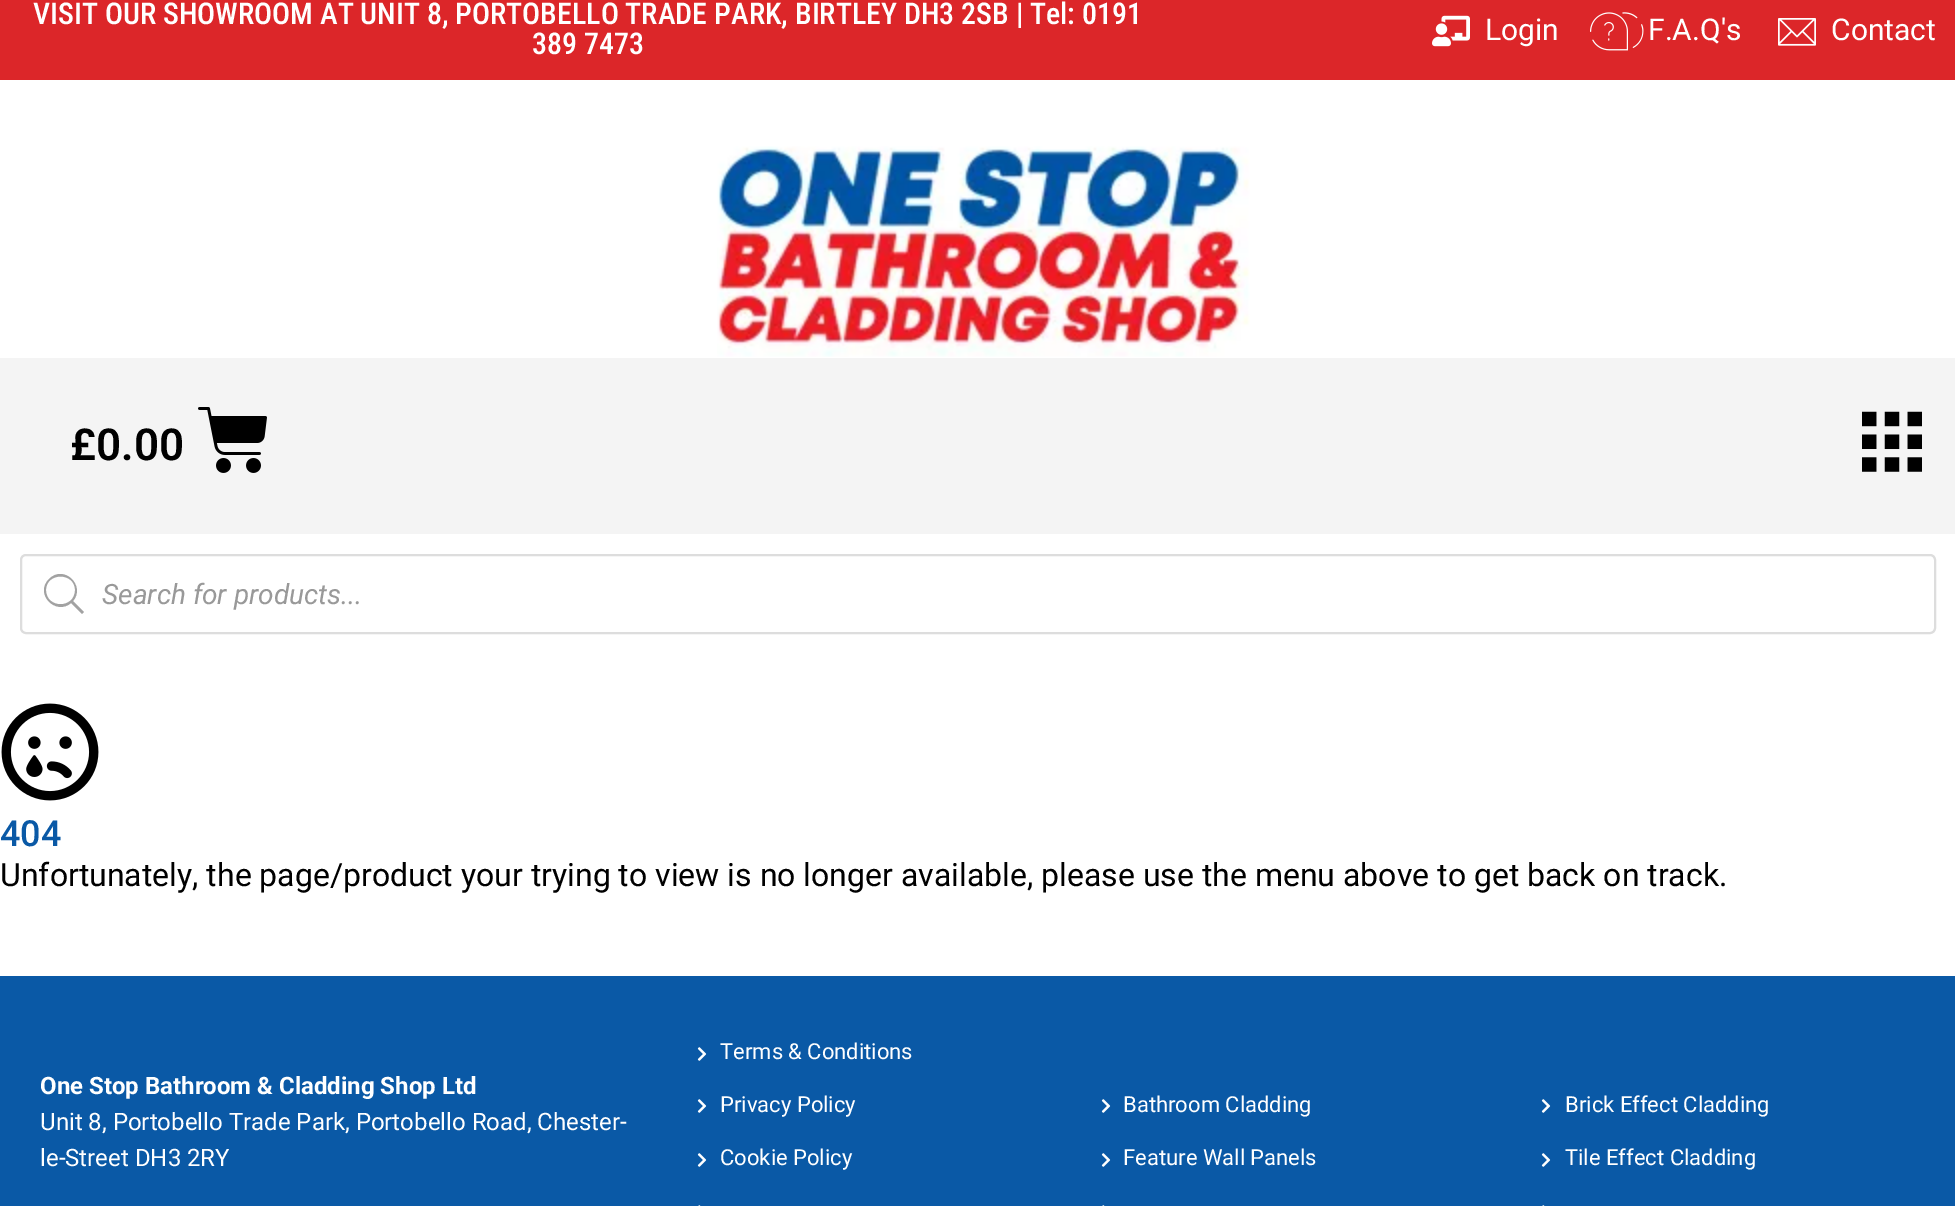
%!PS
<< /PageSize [1955 1206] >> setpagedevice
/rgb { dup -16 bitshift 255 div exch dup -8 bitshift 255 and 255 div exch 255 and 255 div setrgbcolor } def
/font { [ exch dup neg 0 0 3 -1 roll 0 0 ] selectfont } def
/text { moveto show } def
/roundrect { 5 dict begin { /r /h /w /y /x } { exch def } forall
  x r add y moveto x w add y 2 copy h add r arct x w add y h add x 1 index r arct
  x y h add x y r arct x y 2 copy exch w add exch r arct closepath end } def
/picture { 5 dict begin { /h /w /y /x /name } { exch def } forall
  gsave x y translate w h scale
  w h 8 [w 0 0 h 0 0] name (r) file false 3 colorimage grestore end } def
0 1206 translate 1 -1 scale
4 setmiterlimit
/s1 { /RobotoCondensed-Medium 30 font 16#FFFFFF rgb } def
/s2 { /Roboto-Regular 30 font 16#FFFFFF rgb } def
/s3 { /Roboto-SemiBold 44 font 16#000000 rgb } def
/s4 { /Roboto-Italic 28 font 16#999999 rgb } def
/s5 { /Roboto-Medium 36 font 16#0A59A6 rgb } def
/s6 { /Roboto-Regular 32 font 16#000000 rgb } def
/s7 { /Roboto-Bold 24 font 16#FFFFFF rgb } def
/s8 { /Roboto-Regular 24 font 16#FFFFFF rgb } def
/s9 { /Roboto-Regular 22 font 16#FFFFFF rgb } def
16#FFFFFF rgb
0 0 1955 1206 rectfill
16#DC2629 rgb
0 0 1955 80 rectfill
s1
(VISIT OUR SHOWROOM AT UNIT 8, PORTOBELLO TRADE PARK, BIRTLEY DH3 2SB | Tel: 0191) 33 24 text
(389 7473) 532 54 text
(pic1.raw) 1432 15 38 32 picture
s2
(Login) 1485 40 text
(pic2.raw) 1590 12 54 39 picture
(F.A.Q's) 1648 40 text
(pic3.raw) 1778 18 38 28 picture
(Contact) 1831 40 text
(pic4.raw) 717 146 533 211 picture
16#F4F4F4 rgb
0 358 1955 176 rectfill
s3
(£0.00) 70 460 text
(pic5.raw) 198 407 69 66 picture
(pic6.raw) 1862 411 60 61 picture
16#DDDDDD rgb
2 setlinewidth
21 555 1914 78 5 roundrect stroke
16#A2A2A2 rgb
84 612 moveto 73 601 lineto 86 586 64 564 49 579 curveto 34 594 56 616 71 603 curveto 82 614 lineto closepath 46 590 moveto 46 572 75 572 75 590 curveto 75 609 46 609 46 590 curveto closepath fill
s4
(Search for products...) 102 604 text
(pic7.raw) 1 703 98 98 picture
s5
(404) 0 846 text
s6
(Unfortunately, the page/product your trying to view is no longer available, please use the menu above to get back on track.) 0 886 text
16#0A59A6 rgb
0 976 1955 230 rectfill
s7
(One Stop Bathroom & Cladding Shop Ltd) 40 1094 text
s8
(Unit 8, Portobello Trade Park, Portobello Road, Chester-) 40 1130 text
(le-Street DH3 2RY) 40 1166 text
(pic8.raw) 697 1047 10 14 picture
s9
(Terms & Conditions) 720 1059 text
(pic8.raw) 697 1099 10 14 picture
(Privacy Policy) 720 1112 text
(pic8.raw) 697 1153 10 14 picture
(Cookie Policy) 720 1165 text
(pic9.raw) 698 1205 3 1 picture
(pic8.raw) 1101 1099 10 14 picture
(Bathroom Cladding) 1123 1112 text
(pic8.raw) 1101 1153 10 14 picture
(Feature Wall Panels) 1123 1165 text
(pic9.raw) 1102 1205 3 1 picture
(pic8.raw) 1541 1099 10 14 picture
(Brick Effect Cladding) 1565 1112 text
(pic8.raw) 1541 1153 10 14 picture
(Tile Effect Cladding) 1565 1165 text
(pic9.raw) 1542 1205 3 1 picture
showpage
